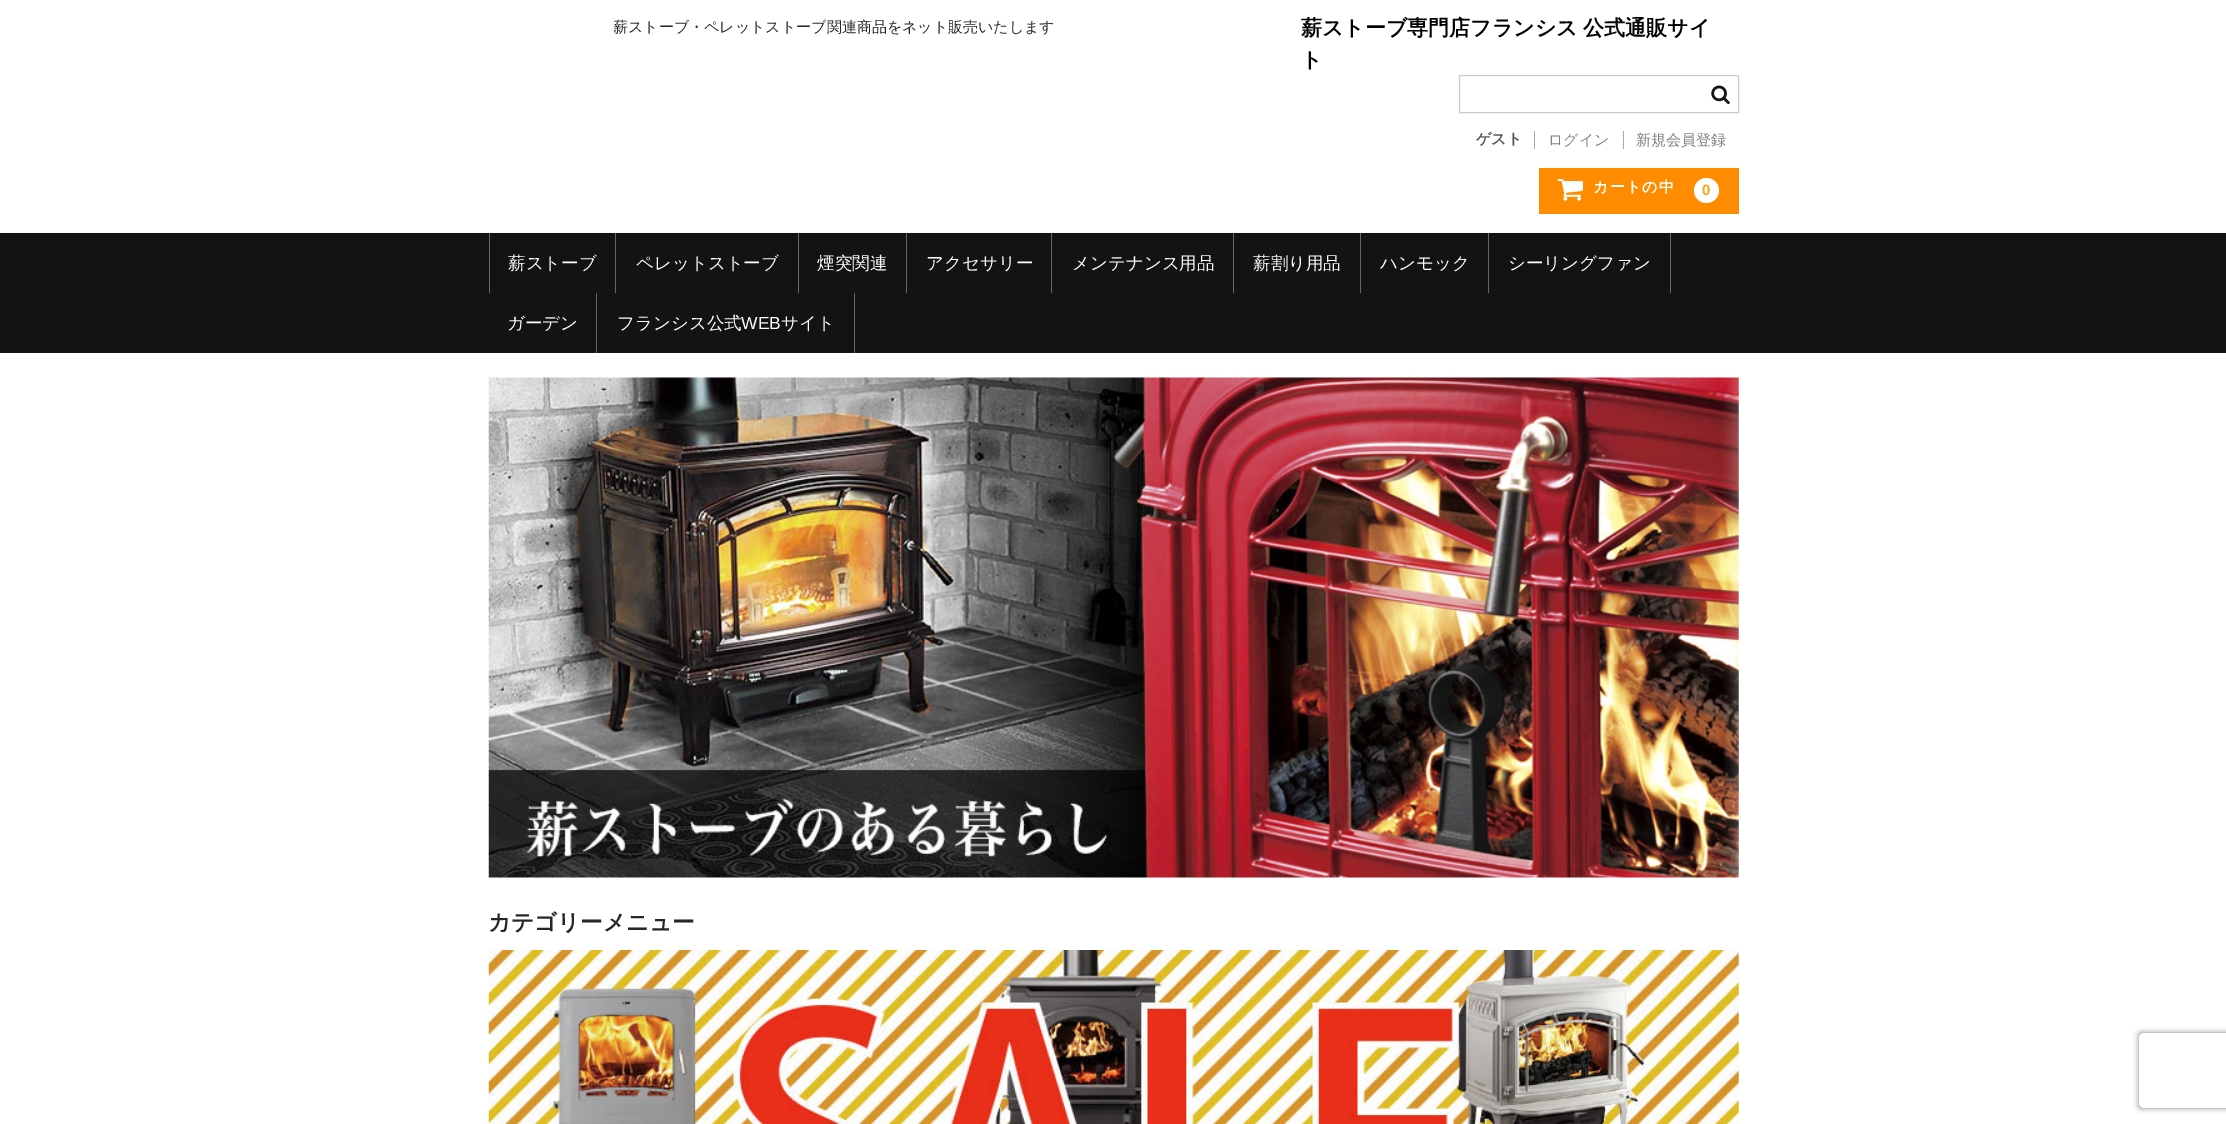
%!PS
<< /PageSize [2226 1124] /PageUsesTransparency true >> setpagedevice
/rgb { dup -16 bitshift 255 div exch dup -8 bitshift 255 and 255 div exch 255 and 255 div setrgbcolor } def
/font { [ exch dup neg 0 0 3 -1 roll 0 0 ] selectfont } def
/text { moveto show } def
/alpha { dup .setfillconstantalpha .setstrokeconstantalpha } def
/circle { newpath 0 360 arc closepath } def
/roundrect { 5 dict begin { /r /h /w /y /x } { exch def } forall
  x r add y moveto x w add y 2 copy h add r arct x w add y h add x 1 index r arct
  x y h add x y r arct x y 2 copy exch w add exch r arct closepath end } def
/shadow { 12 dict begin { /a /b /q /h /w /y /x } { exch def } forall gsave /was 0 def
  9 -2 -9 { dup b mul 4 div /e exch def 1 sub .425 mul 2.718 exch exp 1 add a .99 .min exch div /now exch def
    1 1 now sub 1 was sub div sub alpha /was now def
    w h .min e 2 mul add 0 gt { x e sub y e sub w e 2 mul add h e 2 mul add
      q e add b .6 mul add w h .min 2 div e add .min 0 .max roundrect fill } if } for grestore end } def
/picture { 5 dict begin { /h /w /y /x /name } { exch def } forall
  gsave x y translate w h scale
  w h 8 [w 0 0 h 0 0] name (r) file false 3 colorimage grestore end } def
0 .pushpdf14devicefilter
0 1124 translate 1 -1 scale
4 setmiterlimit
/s1 { /WenQuanYiZenHei-Medium 15 font 16#262626 rgb } def
/s2 { /WenQuanYiZenHei-Bold 21 font 16#000000 rgb } def
/s3 { /WenQuanYiZenHei-Bold 15 font 16#565656 rgb } def
/s4 { /WenQuanYiZenHei-Medium 15 font 16#808080 rgb } def
/s5 { /WenQuanYiZenHei-Medium 17.5 font 16#FFFFFF rgb } def
/s6 { /LiberationSans-Regular 17.5 font 16#FFFFFF rgb } def
/s7 { /WenQuanYiZenHei-Bold 22.5 font 16#262626 rgb } def
16#FFFFFF rgb
0 0 2226 1124 rectfill
gsave
614 0 687 75 rectclip
s1
(薪ストーブ・ペレットストーブ関連商品をネット販売いたします) 613 32 text
grestore
/WenQuanYiZenHei-Bold 21 font
16#000000 rgb
1301 35 moveto -1 0 32 (薪ストーブ専門店フランシス 公式通販サイ) widthshow
(ト) 1301 67 text
16#CCCCCC rgb
1459.5 75.5 279 37 rectstroke
(pic1.raw) 1711 85 19 20 picture
16#AAAAAA rgb
1534 131 1 18 rectfill
s3
(ゲスト) 1476 144 text
16#AAAAAA rgb
1623 131 1 18 rectfill
s4
(ログイン) 1548 145 text
(新規会員登録) 1636 145 text
16#FF8C00 rgb
1539 168 200 46 rectfill
(pic2.raw) 1557 179 27 22 picture
/WenQuanYiZenHei-Bold 15 font
16#FFFFFF rgb
1593 192 moveto 1.25 0 (カートの中) ashow
1706.5 190.5 12.5 circle fill
/LiberationSans-Bold 15 font
16#FBA60D rgb
1702 195 moveto 1.25 0 (0) ashow
16#131313 rgb
0 233 2226 120 rectfill
16#666666 rgb
615 233 1 60 rectfill
489 233 1 60 rectfill
s5
(薪ストーブ) 508 269 text
16#666666 rgb
798 233 1 60 rectfill
s5
(ペレットストーブ) 636 269 text
16#666666 rgb
906 233 1 60 rectfill
s5
(煙突関連) 817 269 text
16#666666 rgb
1051 233 1 60 rectfill
s5
(アクセサリー) 926 269 text
16#666666 rgb
1233 233 1 60 rectfill
s5
(メンテナンス用品) 1072 269 text
16#666666 rgb
1360 233 1 60 rectfill
s5
(薪割り用品) 1253 269 text
16#666666 rgb
1488 233 1 60 rectfill
s5
(ハンモック) 1380 269 text
16#666666 rgb
1670 233 1 60 rectfill
s5
(シーリングファン) 1508 269 text
16#666666 rgb
596 293 1 60 rectfill
s5
(ガーデン) 507 329 text
16#666666 rgb
854 293 1 60 rectfill
s5
(フランシス公式) 617 329 text
s6
(WEB) 741 329 text
s5
(サイト) 781 329 text
(pic3.raw) 488 377 1251 501 picture
s7
(カテゴリーメニュー) 488 930 text
(pic4.raw) 488 950 1251 174 picture
gsave
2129 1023 moveto 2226 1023 lineto 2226 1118 lineto 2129 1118 lineto closepath 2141.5 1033 moveto 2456.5 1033 lineto 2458 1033 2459 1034 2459 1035.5 curveto 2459 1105.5 lineto 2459 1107 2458 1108 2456.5 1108 curveto 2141.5 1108 lineto 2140 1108 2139 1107 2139 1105.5 curveto 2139 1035.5 lineto 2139 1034 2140 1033 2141.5 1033 curveto closepath eoclip newpath
16#808080 rgb
2139 1033 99 75 2.5 3 1 shadow
grestore
.poppdf14devicefilter showpage
